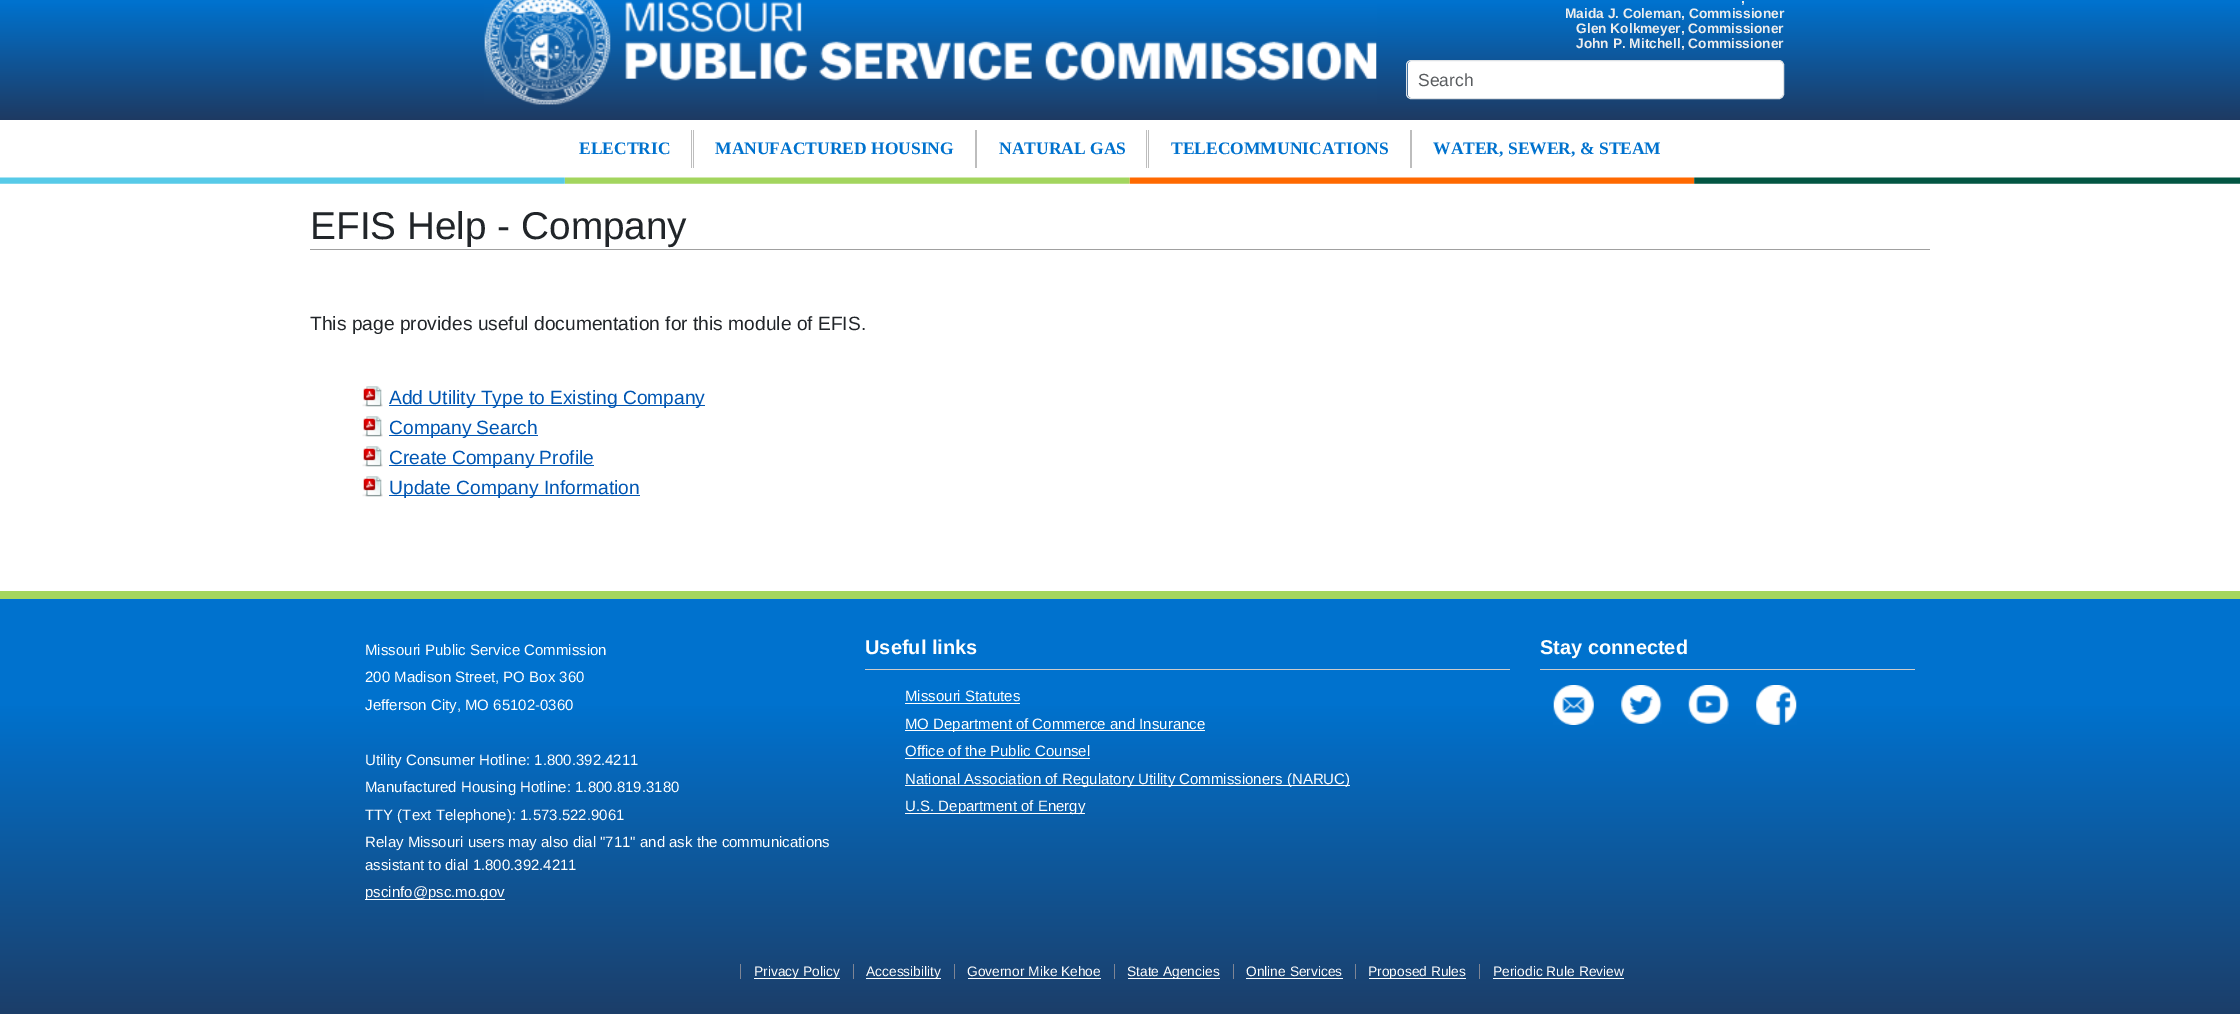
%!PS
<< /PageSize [2240 1014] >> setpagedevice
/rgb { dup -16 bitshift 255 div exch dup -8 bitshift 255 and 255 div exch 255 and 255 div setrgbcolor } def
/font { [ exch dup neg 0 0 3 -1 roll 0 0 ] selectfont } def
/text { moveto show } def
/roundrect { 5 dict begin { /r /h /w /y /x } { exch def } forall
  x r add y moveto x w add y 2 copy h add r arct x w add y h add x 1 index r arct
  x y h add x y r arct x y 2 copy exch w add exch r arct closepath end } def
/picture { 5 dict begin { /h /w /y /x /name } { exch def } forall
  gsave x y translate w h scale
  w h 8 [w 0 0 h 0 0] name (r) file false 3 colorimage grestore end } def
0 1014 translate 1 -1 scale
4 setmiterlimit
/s1 { /LiberationSans-Bold 13.75 font 16#EEEEEE rgb } def
/s2 { /LiberationSans-Regular 17.5 font 16#595C5F rgb } def
/s3 { /LiberationSerif-Bold 17.5 font 16#0072CE rgb } def
/s4 { /LiberationSans-Regular 38.75 font 16#212529 rgb } def
/s5 { /LiberationSans-Regular 19.2 font 16#212529 rgb } def
/s6 { /LiberationSans-Regular 19.2 font 16#0056B3 rgb } def
/s7 { /LiberationSans-Regular 15 font 16#FFFFFF rgb } def
/s8 { /LiberationSans-Bold 20 font 16#FFFFFF rgb } def
/s9 { /LiberationSans-Regular 13.75 font 16#FFFFFF rgb } def
16#FFFFFF rgb
0 0 2240 1014 rectfill
gsave 0 0 moveto 2240 0 lineto 2240 120 lineto 0 120 lineto closepath clip newpath
<< /ShadingType 2 /ColorSpace /DeviceRGB /Coords [1120 -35 1120 120] /Extend [true true] /Function << /FunctionType 3 /Domain [0 1] /Functions [<< /FunctionType 2 /Domain [0 1] /C0 [0 0.447 0.808] /C1 [0 0.447 0.808] /N 1 >> << /FunctionType 2 /Domain [0 1] /C0 [0 0.447 0.808] /C1 [0.118 0.227 0.384] /N 1 >>] /Bounds [0.24] /Encode [0 1 0 1] >> >> shfill grestore
(pic1.raw) 484 0 893 105 picture
s1
(,) 1741 3 text
(Maida J. Coleman, Commissioner) 1565 18 text
(Glen Kolkmeyer, Commissioner) 1576 33 text
(John P. Mitchell, Commissioner) 1576 48 text
16#FFFFFF rgb
1408 61 375 37 4 roundrect fill
16#DEE2E6 rgb
1406.5 60.5 377 38 4.5 roundrect stroke
s2
(Search) 1418 86 text
16#BDBDBD rgb
691 130 1 38 rectfill
s3
(ELECTRIC) 579 154 text
16#BDBDBD rgb
975 130 2 38 rectfill
693 130 1 38 rectfill
s3
(MANUFACTURED HOUSING) 715 154 text
16#BDBDBD rgb
1146 130 1 38 rectfill
s3
(NATURAL GAS) 999 154 text
16#BDBDBD rgb
1410 130 2 38 rectfill
1148 130 1 38 rectfill
s3
(TELECOMMUNICATIONS) 1171 154 text
(WATER, SEWER, & STEAM) 1433 154 text
(pic2.raw) 0 177 2240 7 picture
16#A0A0A0 rgb
310 249 1620 1 rectfill
s4
(EFIS Help - Company) 310 239 text
s5
(This page provides useful documentation for this module of EFIS.) 310 330 text
(pic3.raw) 362 386 21 21 picture
16#0056B3 rgb
389 405 316 1 rectfill
(Add Utility Type to Existing Company) 389 404 text
(pic3.raw) 362 416 21 21 picture
389 435 149 1 rectfill
(Company Search) 389 434 text
(pic3.raw) 362 446 21 21 picture
389 465 205 1 rectfill
(Create Company Profile) 389 464 text
(pic3.raw) 362 476 21 21 picture
389 495 251 1 rectfill
(Update Company Information) 389 494 text
gsave 0 599 moveto 2240 599 lineto 2240 1014 lineto 0 1014 lineto closepath clip newpath
<< /ShadingType 2 /ColorSpace /DeviceRGB /Coords [1120 599 1120 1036] /Extend [true true] /Function << /FunctionType 3 /Domain [0 1] /Functions [<< /FunctionType 2 /Domain [0 1] /C0 [0 0.447 0.808] /C1 [0 0.447 0.808] /N 1 >> << /FunctionType 2 /Domain [0 1] /C0 [0 0.447 0.808] /C1 [0.118 0.227 0.384] /N 1 >>] /Bounds [0.24] /Encode [0 1 0 1] >> >> shfill grestore
16#A4D65E rgb
0 591 2240 8 rectfill
s7
(Missouri Public Service Commission) 365 655 text
(200 Madison Street, PO Box 360) 365 682 text
(Jefferson City, MO 65102-0360) 365 710 text
(Utility Consumer Hotline: 1.800.392.4211) 365 765 text
(Manufactured Housing Hotline: 1.800.819.3180) 365 792 text
(TTY \(Text Telephone\): 1.573.522.9061) 365 820 text
(Relay Missouri users may also dial "711" and ask the communications) 365 847 text
(assistant to dial 1.800.392.4211) 365 870 text
365 899 140 1 rectfill
(pscinfo@psc.mo.gov) 365 897 text
16#CCCCCC rgb
865 669 645 1 rectfill
s8
(Useful links) 865 654 text
s7
(Missouri Statutes) 905 701 text
905 703 115 1 rectfill
905 730 300 1 rectfill
(MO Department of Commerce and Insurance) 905 729 text
(Office of the Public Counsel) 905 756 text
905 758 185 1 rectfill
905 785 445 1 rectfill
(National Association of Regulatory Utility Commissioners \(NARUC\)) 905 784 text
905 813 180 1 rectfill
(U.S. Department of Energy) 905 811 text
16#CCCCCC rgb
1540 669 375 1 rectfill
s8
(Stay connected) 1540 654 text
(pic4.raw) 1553 685 41 40 picture
(pic5.raw) 1621 685 41 39 picture
(pic6.raw) 1688 685 41 39 picture
(pic7.raw) 1756 685 41 40 picture
16#7E8595 rgb
740 964 1 15 rectfill
16#FFFFFF rgb
754 978 86 1 rectfill
s9
(Privacy Policy) 754 976 text
16#7E8595 rgb
853 964 1 15 rectfill
16#FFFFFF rgb
866 978 75 1 rectfill
(Accessibility) 866 976 text
16#7E8595 rgb
954 964 1 15 rectfill
s9
(Governor Mike Kehoe) 967 976 text
968 978 133 1 rectfill
16#7E8595 rgb
1114 964 1 15 rectfill
16#FFFFFF rgb
1128 978 92 1 rectfill
(State Agencies) 1127 976 text
16#7E8595 rgb
1233 964 1 15 rectfill
s9
(Online Services) 1246 976 text
1246 978 97 1 rectfill
16#7E8595 rgb
1355 964 1 15 rectfill
16#FFFFFF rgb
1369 978 97 1 rectfill
(Proposed Rules) 1368 976 text
16#7E8595 rgb
1479 964 1 15 rectfill
s9
(Periodic Rule Review) 1493 976 text
1493 978 131 1 rectfill
showpage
